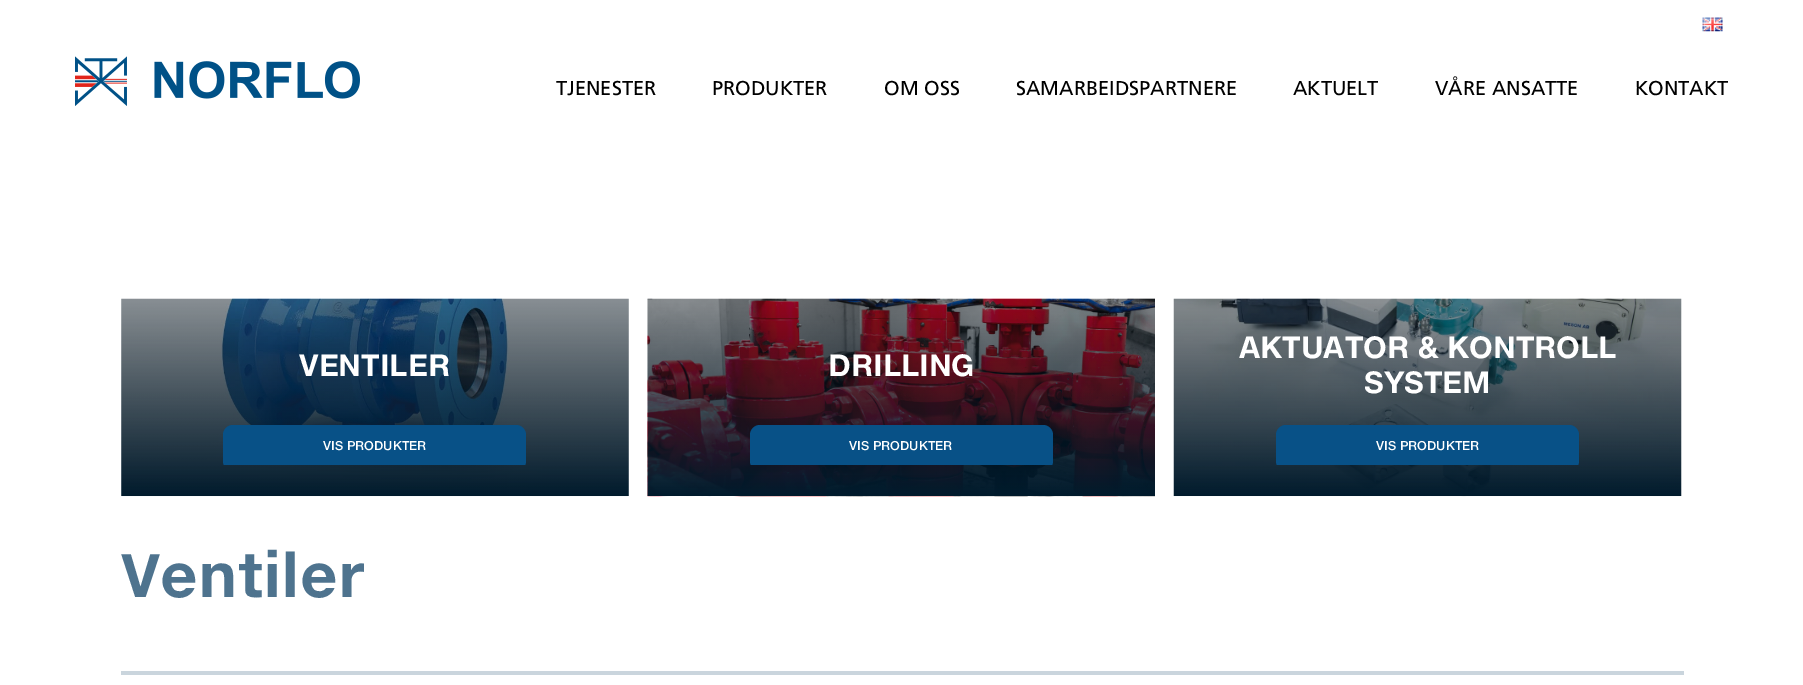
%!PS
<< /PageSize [1803 685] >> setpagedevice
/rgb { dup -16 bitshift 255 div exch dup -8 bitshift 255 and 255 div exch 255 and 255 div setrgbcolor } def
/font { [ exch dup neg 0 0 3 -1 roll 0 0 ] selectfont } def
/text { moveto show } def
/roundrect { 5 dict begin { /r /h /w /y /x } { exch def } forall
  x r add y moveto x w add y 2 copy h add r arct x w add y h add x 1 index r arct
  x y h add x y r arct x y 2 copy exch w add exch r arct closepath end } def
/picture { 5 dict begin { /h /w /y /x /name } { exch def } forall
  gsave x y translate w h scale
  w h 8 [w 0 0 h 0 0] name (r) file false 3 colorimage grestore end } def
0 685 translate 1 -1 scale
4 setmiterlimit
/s1 { /Frutiger-Regular 20 font 16#000000 rgb } def
/s2 { /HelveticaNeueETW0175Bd-Bold 30 font 16#FFFFFF rgb } def
/s3 { /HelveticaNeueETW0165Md-Medium 12.5 font 16#FFFFFF rgb } def
/s4 { /HelveticaNeueETW0175Bd-Bold 60 font 16#4E738E rgb } def
16#FFFFFF rgb
0 0 1803 685 rectfill
(pic1.raw) 75 56 285 50 picture
(pic2.raw) 1702 17 21 15 picture
s1
(TJENESTER) 556 95 text
(PRODUKTER) 712 95 text
(OM OSS) 884 95 text
(SAMARBEIDSPARTNERE) 1016 95 text
(AKTUELT) 1293 95 text
(VÅRE ANSATTE) 1435 95 text
(KONTAKT) 1635 95 text
(pic3.raw) 121 298 508 199 picture
(pic4.raw) 121 298 508 198 picture
s2
(VENTILER) 299 376 text
gsave
223 425 303 40 rectclip
16#085187 rgb
223 425 303 46 10 roundrect fill
grestore
s3
(VIS PRODUKTER) 323 450 text
(pic5.raw) 647 298 508 199 picture
(pic6.raw) 647 298 508 198 picture
s2
(DRILLING) 828 376 text
gsave
750 425 303 40 rectclip
16#085187 rgb
750 425 303 46 10 roundrect fill
grestore
s3
(VIS PRODUKTER) 849 450 text
(pic7.raw) 1173 298 509 199 picture
(pic8.raw) 1173 298 509 198 picture
s2
(AKTUATOR & KONTROLL) 1239 358 text
(SYSTEM) 1364 393 text
gsave
1276 425 303 40 rectclip
16#085187 rgb
1276 425 303 46 10 roundrect fill
grestore
s3
(VIS PRODUKTER) 1376 450 text
16#CAD5DD rgb
121 671 1563 4 rectfill
s4
(Ventiler) 121 597 text
showpage
